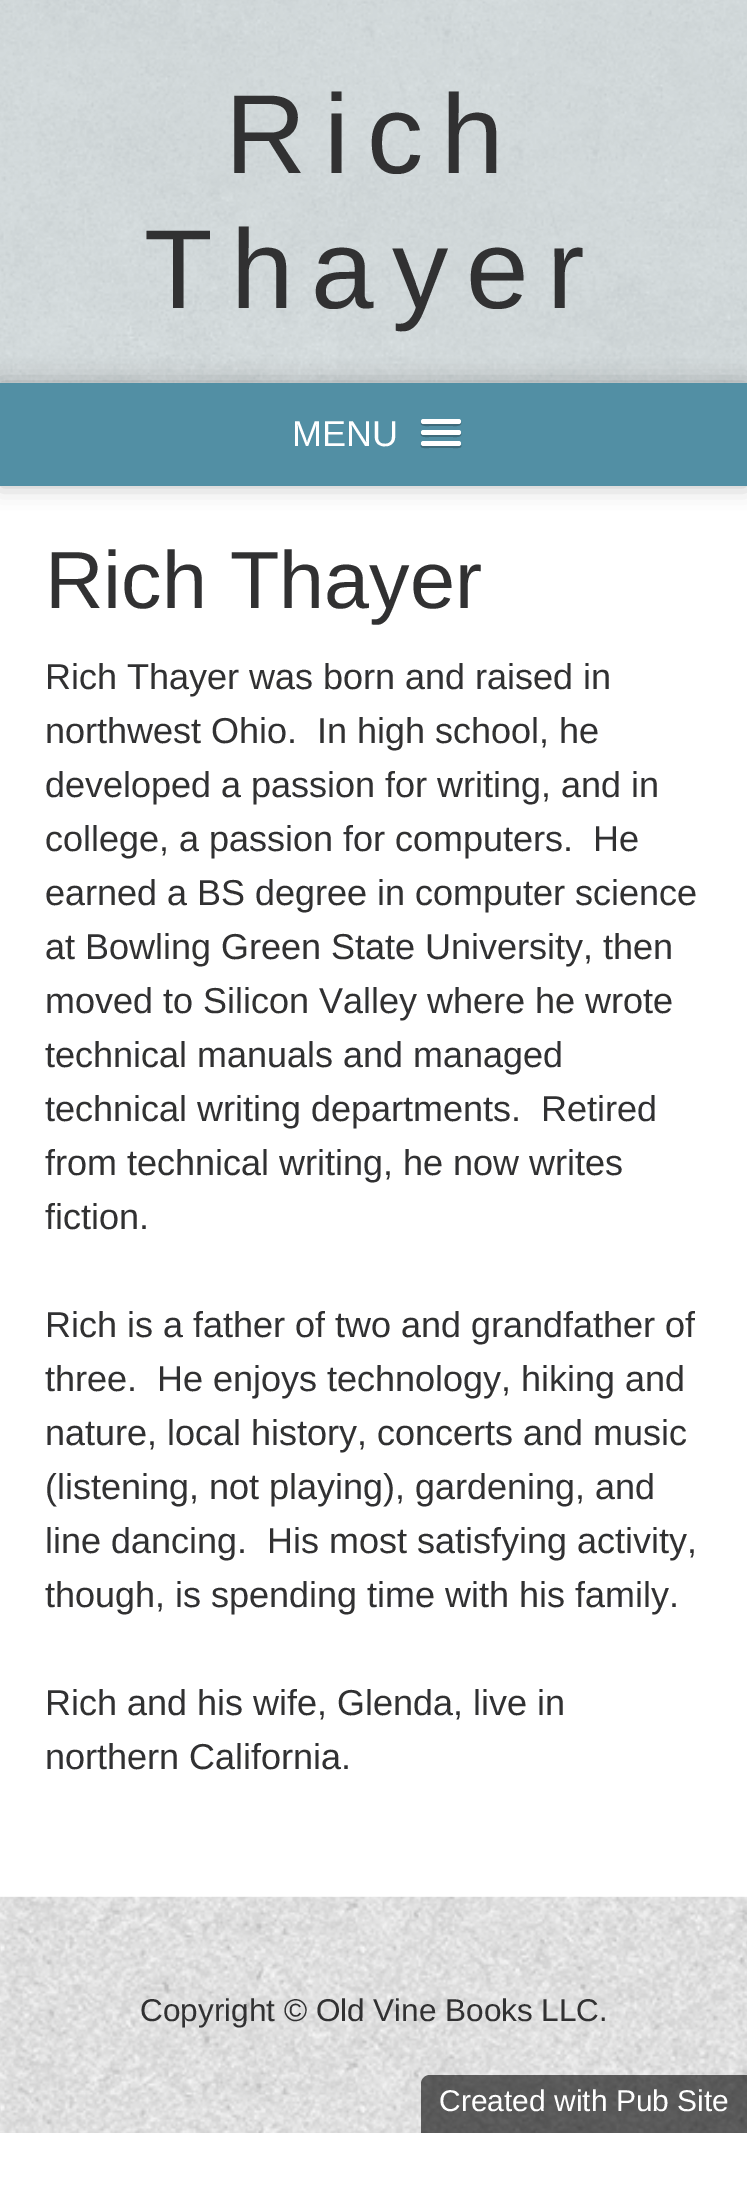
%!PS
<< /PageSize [747 2212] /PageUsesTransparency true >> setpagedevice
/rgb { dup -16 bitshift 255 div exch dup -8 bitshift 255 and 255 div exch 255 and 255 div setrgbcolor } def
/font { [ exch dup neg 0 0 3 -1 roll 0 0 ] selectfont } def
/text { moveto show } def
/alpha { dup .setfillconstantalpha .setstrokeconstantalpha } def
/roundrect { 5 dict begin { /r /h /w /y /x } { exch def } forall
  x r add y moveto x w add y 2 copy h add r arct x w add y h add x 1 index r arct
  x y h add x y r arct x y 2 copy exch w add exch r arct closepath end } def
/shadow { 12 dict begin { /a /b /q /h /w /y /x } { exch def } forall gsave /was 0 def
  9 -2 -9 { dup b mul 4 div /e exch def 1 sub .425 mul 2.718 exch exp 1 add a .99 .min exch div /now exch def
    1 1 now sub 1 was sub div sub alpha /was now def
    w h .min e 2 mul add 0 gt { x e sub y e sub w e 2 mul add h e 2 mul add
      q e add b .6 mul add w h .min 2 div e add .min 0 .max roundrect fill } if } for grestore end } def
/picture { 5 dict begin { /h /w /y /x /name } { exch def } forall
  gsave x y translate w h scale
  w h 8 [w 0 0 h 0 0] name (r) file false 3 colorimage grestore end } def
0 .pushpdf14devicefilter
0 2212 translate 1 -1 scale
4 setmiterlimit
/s1 { /LiberationSans-Regular 36 font 16#FFFFFF rgb } def
/s2 { /LiberationSans-Regular 81 font 16#313132 rgb } def
/s3 { /LiberationSans-Regular 36 font 16#313132 rgb } def
/s4 { /LiberationSans-Regular 31.5 font 16#313132 rgb } def
/s5 { /LiberationSans-Regular 30 font 16#FFFFFF rgb } def
16#FFFFFF rgb
0 0 747 2212 rectfill
16#DCE4E6 rgb
0 0 747 383 rectfill
(pic1.raw) 0 0 747 383 picture
/LiberationSans-Regular 112.5 font
16#313132 rgb
225 173 moveto 18 0 (Rich) ashow
144 308 moveto 18 0 (Thayer) ashow
16#000000 rgb
0 383 747 103 0 11 0.25 shadow
16#528FA4 rgb
0 383 747 103 rectfill
s1
(MENU) 292 446 text
16#3E6B7B rgb
421 422 moveto 419 427 429 426 429 426 curveto 453 426 lineto 453 426 463 427 461 422 curveto 459 424 423 424 421 422 curveto closepath fill
16#FFFFFF rgb
421 419 40 5 2.5 roundrect fill
16#3E6B7B rgb
421 433 moveto 419 438 428 437 429 437 curveto 453 437 lineto 454 437 463 438 461 433 curveto 459 434 lineto 423 434 lineto closepath fill
16#FFFFFF rgb
421 430 40 5 2.5 roundrect fill
16#3E6B7B rgb
421 445 moveto 419 449 428 448 429 448 curveto 453 448 lineto 454 448 463 449 461 445 curveto 459 445 lineto 423 445 lineto closepath fill
16#FFFFFF rgb
421 441 40 5 2.5 roundrect fill
s2
(Rich Thayer) 45 608 text
s3
(Rich Thayer was born and raised in) 45 689 text
(northwest Ohio.  In high school, he) 45 743 text
(developed a passion for writing, and in) 45 797 text
(college, a passion for computers.  He) 45 851 text
(earned a BS degree in computer science) 45 905 text
(at Bowling Green State University, then) 45 959 text
(moved to Silicon Valley where he wrote) 45 1013 text
(technical manuals and managed) 45 1067 text
(technical writing departments.  Retired) 45 1121 text
(from technical writing, he now writes) 45 1175 text
(fiction.) 45 1229 text
(Rich is a father of two and grandfather of) 45 1337 text
(three.  He enjoys technology, hiking and) 45 1391 text
(nature, local history, concerts and music) 45 1445 text
(\(listening, not playing\), gardening, and) 45 1499 text
(line dancing.  His most satisfying activity,) 45 1553 text
(though, is spending time with his family.) 45 1607 text
(Rich and his wife, Glenda, live in) 45 1715 text
(northern California.) 45 1769 text
16#F5F5F5 rgb
0 1897 747 236 rectfill
(pic2.raw) 0 1896 747 237 picture
s4
(Copyright © Old Vine Books LLC.) 140 2021 text
0.6 alpha
16#000000 rgb
430 2075 moveto 747 2075 lineto 747 2133 lineto 421 2133 lineto 421 2084 lineto 421 2079 425 2075 430 2075 curveto closepath fill
1 alpha
s5
(Created with Pub Site) 439 2111 text
.poppdf14devicefilter showpage
